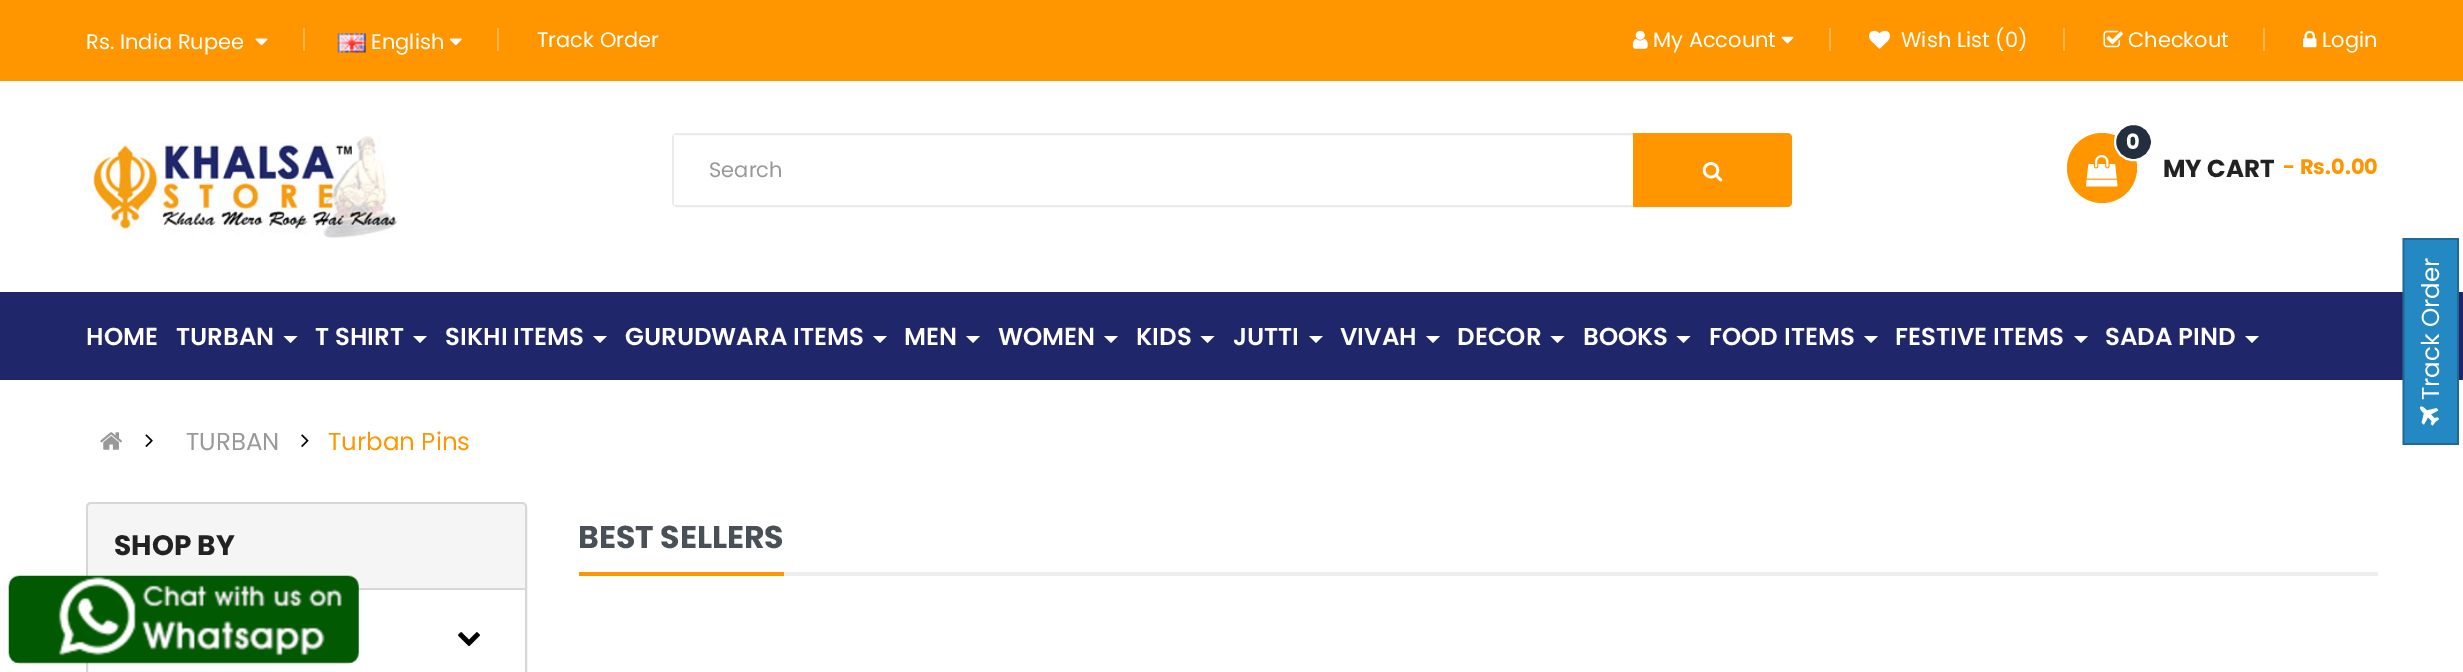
%!PS
<< /PageSize [2463 672] >> setpagedevice
/rgb { dup -16 bitshift 255 div exch dup -8 bitshift 255 and 255 div exch 255 and 255 div setrgbcolor } def
/font { [ exch dup neg 0 0 3 -1 roll 0 0 ] selectfont } def
/text { moveto show } def
/circle { newpath 0 360 arc closepath } def
/roundrect { 5 dict begin { /r /h /w /y /x } { exch def } forall
  x r add y moveto x w add y 2 copy h add r arct x w add y h add x 1 index r arct
  x y h add x y r arct x y 2 copy exch w add exch r arct closepath end } def
/picture { 5 dict begin { /h /w /y /x /name } { exch def } forall
  gsave x y translate w h scale
  w h 8 [w 0 0 h 0 0] name (r) file false 3 colorimage grestore end } def
0 672 translate 1 -1 scale
4 setmiterlimit
/s1 { /Poppins-Regular 21 font 16#FFFFFF rgb } def
/s2 { /Poppins-Regular 21 font 16#999999 rgb } def
/s3 { /Poppins-Bold 21 font 16#FFFFFF rgb } def
/s4 { /Poppins-Bold 21 font 16#FF9600 rgb } def
/s5 { /Poppins-Bold 24.5 font 16#222222 rgb } def
/s6 { /Poppins-SemiBold 24.5 font 16#FFFFFF rgb } def
/s7 { /Poppins-Regular 24.5 font 16#999999 rgb } def
/s8 { /Poppins-Regular 24.5 font 16#FF9600 rgb } def
/s9 { /Poppins-Bold 28 font 16#222222 rgb } def
/s10 { /Poppins-Bold 31.5 font 16#495057 rgb } def
16#FFFFFF rgb
0 0 2463 672 rectfill
16#FF9600 rgb
0 0 2463 81 rectfill
s1
(Rs. India Rupee) 86 49 text
(pic1.raw) 255 38 13 8 picture
16#FFB64D rgb
303 28 2 23 rectfill
(pic2.raw) 337 33 29 20 picture
s1
(English) 371 49 text
(pic3.raw) 449 38 13 8 picture
16#FFB64D rgb
497 28 2 23 rectfill
s1
(Track Order) 537 47 text
(pic4.raw) 1632 30 16 19 picture
(My Account) 1653 47 text
(pic5.raw) 1781 36 13 8 picture
16#FFB64D rgb
1829 28 2 23 rectfill
(pic6.raw) 1869 30 21 19 picture
s1
(Wish List \(0\)) 1901 47 text
16#FFB64D rgb
2063 28 2 23 rectfill
(pic7.raw) 2103 30 20 18 picture
s1
(Checkout) 2128 47 text
16#FFB64D rgb
2263 28 2 23 rectfill
(pic8.raw) 2303 30 14 18 picture
s1
(Login) 2322 47 text
(pic9.raw) 86 135 311 103 picture
16#EBEBEB rgb
2 setlinewidth
673 134 1118 72 4 roundrect stroke
16#FFFFFF rgb
674 135 2 70 rectfill
s2
(Search) 709 177 text
16#FF9600 rgb
1633 133 moveto 1787 133 lineto 1790 133 1792 135 1792 138 curveto 1792 202 lineto 1792 205 1790 207 1787 207 curveto 1633 207 lineto closepath fill
(pic10.raw) 1702 162 21 20 picture
2102 168 35 circle fill
(pic11.raw) 2086 155 32 32 picture
16#232F3E rgb
2115 124 37 36 18 roundrect gsave fill grestore
16#FFFFFF rgb
stroke
s3
(0) 2126 149 text
s4
(- Rs.0.00) 2283 174 text
s5
(MY CART) 2163 177 text
16#1F276A rgb
0 292 2463 88 rectfill
s6
(HOME) 86 345 text
(TURBAN) 176 345 text
283.5 336 moveto 297.5 336 lineto 290.5 343 lineto closepath fill
(T SHIRT) 315 345 text
413 336 moveto 427 336 lineto 420 343 lineto closepath fill
(SIKHI ITEMS) 445 345 text
593 336 moveto 607 336 lineto 600 343 lineto closepath fill
(GURUDWARA ITEMS) 625 345 text
873 336 moveto 887 336 lineto 880 343 lineto closepath fill
(MEN) 904 345 text
966 336 moveto 980 336 lineto 973 343 lineto closepath fill
(WOMEN) 998 345 text
1104 336 moveto 1118 336 lineto 1111 343 lineto closepath fill
(KIDS) 1136 345 text
1200.5 336 moveto 1214.5 336 lineto 1207.5 343 lineto closepath fill
(JUTTI) 1233 345 text
1309 336 moveto 1323 336 lineto 1316 343 lineto closepath fill
(VIVAH) 1340 345 text
1426 336 moveto 1440 336 lineto 1433 343 lineto closepath fill
(DECOR) 1457 345 text
1550.5 336 moveto 1564.5 336 lineto 1557.5 343 lineto closepath fill
(BOOKS) 1583 345 text
1676.5 336 moveto 1690.5 336 lineto 1683.5 343 lineto closepath fill
(FOOD ITEMS) 1709 345 text
1864 336 moveto 1878 336 lineto 1871 343 lineto closepath fill
(FESTIVE ITEMS) 1895 345 text
2074 336 moveto 2088 336 lineto 2081 343 lineto closepath fill
(SADA PIND) 2105 345 text
2245 336 moveto 2259 336 lineto 2252 343 lineto closepath fill
(pic12.raw) 100 432 22 18 picture
(pic13.raw) 145 434 8 13 picture
s7
(TURBAN) 186 450 text
(pic14.raw) 301 434 8 13 picture
s8
(Turban Pins) 328 450 text
16#D7D7D7 rgb
87 503 439 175 4 roundrect stroke
16#F5F5F5 rgb
92 504 moveto 521 504 lineto 523 504 525 506 525 508 curveto 525 590 lineto 88 590 lineto 88 508 lineto 88 506 90 504 92 504 curveto closepath fill
16#D7D7D7 rgb
358 588 167 2 rectfill
s9
(SHOP BY) 114 555 text
(pic15.raw) 458 632 22 15 picture
16#EEEEEE rgb
784 572 1594 4 rectfill
s10
(BEST SELLERS) 578 548 text
16#FF9600 rgb
579 572 205 4 rectfill
(pic16.raw) 8 575 351 89 picture
16#2489C3 rgb
2403 238 56 207 rectfill
16#236992 rgb
1.8 setlinewidth
2403.5 444 moveto 2403.5 239 lineto 2458 239 lineto 2458 444 lineto closepath stroke
/Poppins-Regular 24.5 font
16#FFFFFF rgb
gsave 2439 400 translate -90 rotate 0 0 moveto (Track Order) show grestore
(pic17.raw) 2420 406 19 20 picture
showpage
